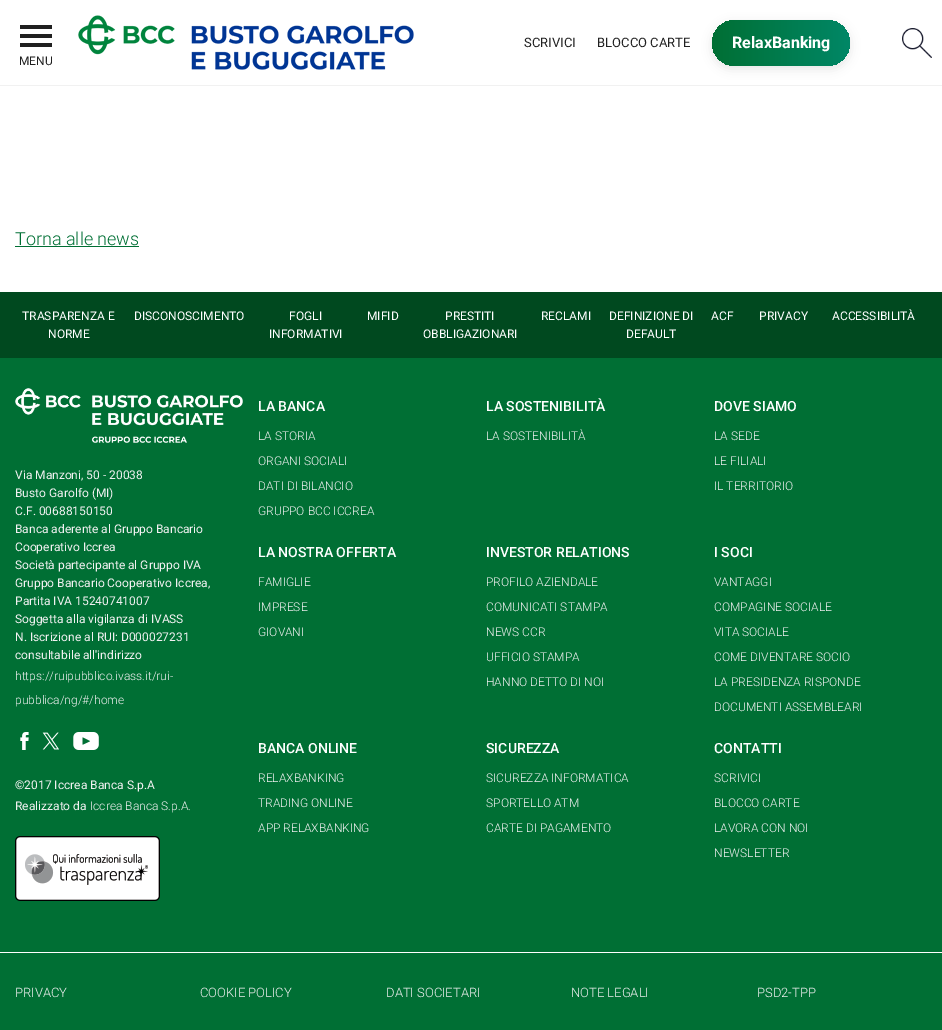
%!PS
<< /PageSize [942 1030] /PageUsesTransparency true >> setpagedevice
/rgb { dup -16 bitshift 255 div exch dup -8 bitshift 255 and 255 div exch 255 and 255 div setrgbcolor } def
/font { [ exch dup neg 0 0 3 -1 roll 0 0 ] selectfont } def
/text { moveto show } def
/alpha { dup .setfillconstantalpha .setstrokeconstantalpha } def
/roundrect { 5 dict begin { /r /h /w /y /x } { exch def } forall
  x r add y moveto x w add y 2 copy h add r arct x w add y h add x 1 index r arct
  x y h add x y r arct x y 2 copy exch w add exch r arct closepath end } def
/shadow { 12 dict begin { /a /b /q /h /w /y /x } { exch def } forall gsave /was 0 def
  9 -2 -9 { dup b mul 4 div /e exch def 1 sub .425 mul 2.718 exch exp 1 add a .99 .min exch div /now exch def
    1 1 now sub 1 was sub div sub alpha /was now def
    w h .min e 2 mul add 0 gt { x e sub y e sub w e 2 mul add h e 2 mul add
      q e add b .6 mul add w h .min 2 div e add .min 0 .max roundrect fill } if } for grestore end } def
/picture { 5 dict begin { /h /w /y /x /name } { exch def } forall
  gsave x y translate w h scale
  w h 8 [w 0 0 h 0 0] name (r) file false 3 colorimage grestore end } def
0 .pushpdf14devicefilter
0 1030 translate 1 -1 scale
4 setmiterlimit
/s1 { /Roboto-Regular 13 font 16#202020 rgb } def
/s2 { /Roboto-Bold 16 font 16#FFFFFF rgb } def
/s3 { /Roboto-Regular 12 font 16#202020 rgb } def
/s4 { /Roboto-Light 18 font 16#006F34 rgb } def
/s5 { /Roboto-Regular 12 font 16#FFFFFF rgb } def
/s6 { /Roboto-Regular 12 font 16#F1F1F1 rgb } def
/s7 { /Roboto-Light 12 font 16#F1F1F1 rgb } def
/s8 { /Roboto-Medium 14 font 16#FFFFFF rgb } def
/s9 { /Roboto-Light 13 font 16#F1F1F1 rgb } def
16#FFFFFF rgb
0 0 942 1030 rectfill
16#F1F1F1 rgb
0 85 942 1 rectfill
(pic1.raw) 78 15 336 55 picture
s1
(SCRIVICI) 524 47 text
(BLOCCO CARTE) 597 47 text
16#000000 rgb
712 23 138 46 23 5 0.1 shadow
gsave 712 20 138 46 23 roundrect clip newpath
<< /ShadingType 2 /ColorSpace /DeviceRGB /Coords [850 43 712 43] /Extend [true true] /Function << /FunctionType 2 /Domain [0 1] /C0 [0 0.529 0.4] /C1 [0 0.435 0.204] /N 1 >> >> shfill grestore
s2
(RelaxBanking) 732 48 text
(pic2.raw) 902 28 30 30 picture
16#202020 rgb
20 34 32 4 rectfill
20 25 32 4 rectfill
20 43 32 4 rectfill
s3
(MENU) 19 65 text
s4
(Torna alle news) 15 245 text
15 246 124 1 rectfill
16#00491F rgb
0 292 942 66 rectfill
s5
(TRASPARENZA E) 22 320 text
(NORME) 48 338 text
(DISCONOSCIMENTO) 134 320 text
(FOGLI) 289 320 text
(INFORMATIVI) 269 338 text
(MIFID) 367 320 text
(PRESTITI) 445 320 text
(OBBLIGAZIONARI) 423 338 text
(RECLAMI) 541 320 text
(DEFINIZIONE DI) 609 320 text
(DEFAULT) 626 338 text
(ACF) 711 320 text
(PRIVACY) 759 320 text
(ACCESSIBILITÀ) 832 320 text
16#006F34 rgb
0 358 942 672 rectfill
(pic3.raw) 15 388 228 55 picture
s6
(Via Manzoni, 50 - 20038) 15 479 text
(Busto Garolfo \(MI\)) 15 497 text
(C.F. 00688150150) 15 515 text
(Banca aderente al Gruppo Bancario) 15 533 text
(Cooperativo Iccrea) 15 551 text
(Società partecipante al Gruppo IVA) 15 569 text
(Gruppo Bancario Cooperativo Iccrea,) 15 587 text
(Partita IVA 15240741007) 15 605 text
(Soggetta alla vigilanza di IVASS) 15 623 text
(N. Iscrizione al RUI: D000027231) 15 641 text
(consultabile all'indirizzo) 15 659 text
s7
(https://ruipubblico.ivass.it/rui-) 15 680 text
(pubblica/ng/#/home) 15 704 text
(pic4.raw) 20 732 9 18 picture
(pic5.raw) 42 732 17 18 picture
(pic6.raw) 73 732 26 18 picture
s6
(©2017 Iccrea Banca S.p.A) 15 789 text
(Realizzato da) 15 810 text
s7
(Iccrea Banca S.p.A.) 90 810 text
(pic7.raw) 15 836 145 65 picture
s8
(LA BANCA) 258 411 text
s7
(LA STORIA) 258 440 text
(ORGANI SOCIALI) 258 465 text
(DATI DI BILANCIO) 258 490 text
(GRUPPO BCC ICCREA) 258 515 text
s8
(LA SOSTENIBILITÀ) 486 411 text
s7
(LA SOSTENIBILITÀ) 486 440 text
s8
(DOVE SIAMO) 714 411 text
s7
(LA SEDE) 714 440 text
(LE FILIALI) 714 465 text
(IL TERRITORIO) 714 490 text
s8
(LA NOSTRA OFFERTA) 258 557 text
s7
(FAMIGLIE) 258 586 text
(IMPRESE) 258 611 text
(GIOVANI) 258 636 text
s8
(INVESTOR RELATIONS) 486 557 text
s7
(PROFILO AZIENDALE) 486 586 text
(COMUNICATI STAMPA) 486 611 text
(NEWS CCR) 486 636 text
(UFFICIO STAMPA) 486 661 text
(HANNO DETTO DI NOI) 486 686 text
s8
(I SOCI) 714 557 text
s7
(VANTAGGI) 714 586 text
(COMPAGINE SOCIALE) 714 611 text
(VITA SOCIALE) 714 636 text
(COME DIVENTARE SOCIO) 714 661 text
(LA PRESIDENZA RISPONDE) 714 686 text
(DOCUMENTI ASSEMBLEARI) 714 711 text
s8
(BANCA ONLINE) 258 753 text
s7
(RELAXBANKING) 258 782 text
(TRADING ONLINE) 258 807 text
(APP RELAXBANKING) 258 832 text
s8
(SICUREZZA) 486 753 text
s7
(SICUREZZA INFORMATICA) 486 782 text
(SPORTELLO ATM) 486 807 text
(CARTE DI PAGAMENTO) 486 832 text
s8
(CONTATTI) 714 753 text
s7
(SCRIVICI) 714 782 text
(BLOCCO CARTE) 714 807 text
(LAVORA CON NOI) 714 832 text
(NEWSLETTER) 714 857 text
16#FFFFFF rgb
0 952 942 1 rectfill
s9
(PRIVACY) 15 997 text
(COOKIE POLICY) 200 997 text
(DATI SOCIETARI) 386 997 text
(NOTE LEGALI) 571 997 text
(PSD2-TPP) 757 997 text
.poppdf14devicefilter showpage
